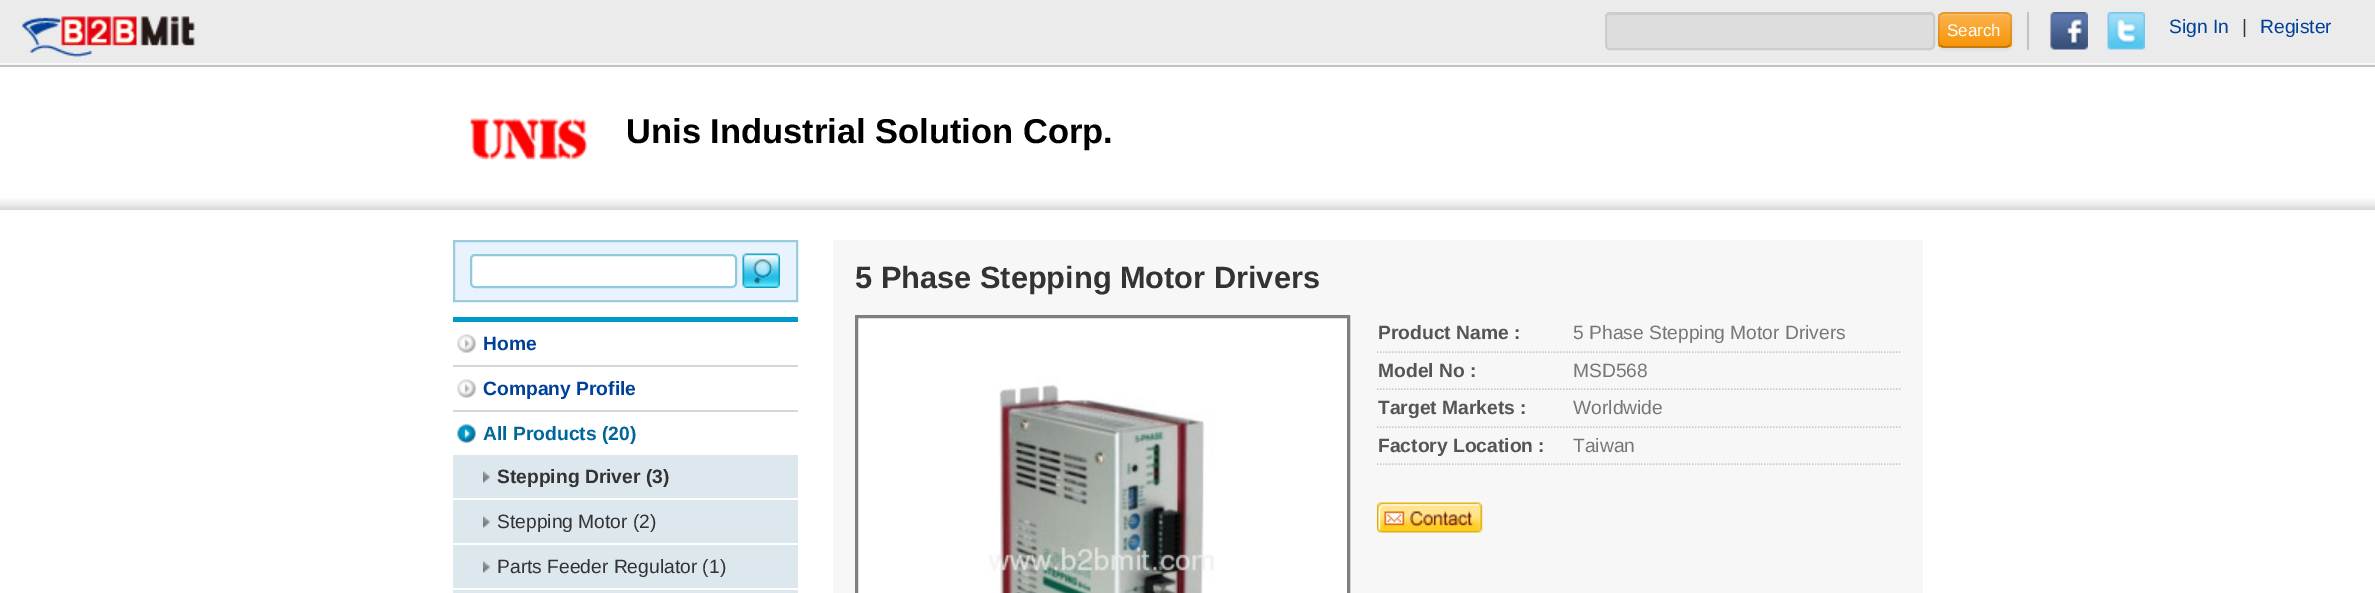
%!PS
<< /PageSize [2375 593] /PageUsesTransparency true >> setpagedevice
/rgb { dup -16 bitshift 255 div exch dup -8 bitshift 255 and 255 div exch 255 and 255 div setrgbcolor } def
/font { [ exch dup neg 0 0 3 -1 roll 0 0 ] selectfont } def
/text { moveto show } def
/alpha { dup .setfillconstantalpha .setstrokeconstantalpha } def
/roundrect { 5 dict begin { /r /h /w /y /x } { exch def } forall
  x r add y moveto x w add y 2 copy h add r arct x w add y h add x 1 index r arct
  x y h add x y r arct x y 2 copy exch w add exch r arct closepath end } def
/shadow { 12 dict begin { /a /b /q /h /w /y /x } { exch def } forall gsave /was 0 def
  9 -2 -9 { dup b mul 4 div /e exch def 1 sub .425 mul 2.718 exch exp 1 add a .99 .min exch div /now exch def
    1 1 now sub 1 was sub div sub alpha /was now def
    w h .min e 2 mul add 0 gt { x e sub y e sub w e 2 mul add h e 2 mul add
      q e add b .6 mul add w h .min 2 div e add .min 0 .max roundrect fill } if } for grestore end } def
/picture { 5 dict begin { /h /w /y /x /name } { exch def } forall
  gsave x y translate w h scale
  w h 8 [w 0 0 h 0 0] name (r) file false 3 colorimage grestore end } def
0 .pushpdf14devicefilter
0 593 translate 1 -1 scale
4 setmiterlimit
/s1 { /LiberationSans-Regular 17 font 16#FFFFFF rgb } def
/s2 { /LiberationSans-Regular 19.25 font 16#004099 rgb } def
/s3 { /LiberationSans-Regular 19.25 font 16#333333 rgb } def
/s4 { /LiberationSans-Bold 34.5 font 16#000000 rgb } def
/s5 { /LiberationSans-Bold 19.25 font 16#004099 rgb } def
/s6 { /LiberationSans-Bold 19.25 font 16#006699 rgb } def
/s7 { /LiberationSans-Bold 19.25 font 16#333333 rgb } def
/s8 { /LiberationSans-Bold 30.75 font 16#333333 rgb } def
/s9 { /LiberationSans-Bold 19.25 font 16#555555 rgb } def
/s10 { /LiberationSans-Regular 19.25 font 16#777777 rgb } def
16#FFFFFF rgb
0 0 2375 593 rectfill
16#EBEBEB rgb
0 0 2375 65 rectfill
(pic1.raw) 0 63 2375 2 picture
16#C2C2C2 rgb
0 65 2375 2 rectfill
(pic2.raw) 22 16 173 41 picture
16#DDDDDD rgb
1605 12 330 38 5 roundrect fill
16#CCCCCC rgb
1610 15 moveto 1930 15 lineto 1932 15 1934 16 1934 18 curveto 1934 17 lineto 1934 15 1933 14 1931 14 curveto 1610 14 lineto 1609 14 1608 15 1607 16 curveto closepath fill
2 setlinewidth
1606 13 328 36 4 roundrect stroke
16#000000 rgb
1938 14 74 36 6 1.5 0.05 shadow
16#FAA732 rgb
1938 12 74 36 6 roundrect fill
gsave
1938 12 74 36 6 roundrect clip newpath
gsave 1938 14 moveto 2012 14 lineto 2012 47 lineto 1938 47 lineto closepath clip newpath
<< /ShadingType 2 /ColorSpace /DeviceRGB /Coords [1975 13 1975 47] /Extend [true true] /Function << /FunctionType 2 /Domain [0 1] /C0 [0.984 0.706 0.314] /C1 [0.973 0.58 0.024] /N 1 >> >> shfill grestore
grestore
16#FCC271 rgb
1944 15 moveto 2006 15 lineto 2008 15 2010 17 2010 20 curveto 2010 12 2001 14 1995 14 curveto 1955 14 lineto 1949 14 1940 12 1940 20 curveto 1940 17 1942 15 1944 15 curveto closepath fill
0.25 alpha
16#000000 rgb
1.5 setlinewidth
2009 45.5 moveto 2008 46.5 2007 47 2005.5 47 curveto 1944 47 lineto 1942.5 47 1941.5 46.5 1940.5 45.5 curveto stroke
0.1 alpha
1940.5 45.5 moveto 1937.5 42.5 1939 33.5 1939 30 curveto 1939 12.5 1936.5 13 1954 13 curveto 1995 13 lineto 2013 13 2011 12.5 2011 30 curveto 2011 33.5 2012 42.5 2009 45.5 curveto stroke
1 alpha
s1
(Search) 1947 36 text
16#C2C2C2 rgb
2027 12 2 38 rectfill
(pic3.raw) 2050 12 38 38 picture
(pic4.raw) 2107 12 38 38 picture
s2
(Sign In) 2169 33 text
s3
(|) 2242 33 text
s2
(Register) 2260 33 text
(pic5.raw) 0 198 2375 12 picture
(pic6.raw) 469 118 118 42 picture
s4
(Unis Industrial Solution Corp.) 626 143 text
16#E9F3FE rgb
454 241 moveto 797 241 lineto 797 301 lineto 454 301 lineto closepath gsave fill grestore
16#99CCDD rgb
2 setlinewidth
stroke
16#FFFFFF rgb
470 254 267 34 5 roundrect fill
16#ECECEC rgb
474 256 moveto 732 256 lineto 734 256 735 258 735 260 curveto 735 258 lineto 735 256 734 255 732 255 curveto 474 255 lineto 472 255 471 256 471 258 curveto 471 260 lineto 471 258 472 256 474 256 curveto closepath fill
16#8FC9DB rgb
471 255 265 32 4 roundrect stroke
(pic7.raw) 742 253 38 35 picture
16#0099CC rgb
453 317 345 5 rectfill
16#D6D6D6 rgb
453 365 345 2 rectfill
(pic8.raw) 457 334 19 19 picture
s5
(Home) 483 350 text
16#D6D6D6 rgb
453 410 345 2 rectfill
(pic8.raw) 457 379 19 19 picture
s5
(Company Profile) 483 395 text
(pic9.raw) 457 424 19 19 picture
s6
(All Products \(20\)) 483 440 text
16#DDE7EE rgb
453 455 345 138 rectfill
16#FFFFFF rgb
453 498 345 2 rectfill
(pic10.raw) 483 470 8 13 picture
s7
(Stepping Driver \(3\)) 497 483 text
16#FFFFFF rgb
453 543 345 2 rectfill
(pic10.raw) 483 515 8 13 picture
s3
(Stepping Motor \(2\)) 497 528 text
16#FFFFFF rgb
453 588 345 2 rectfill
(pic10.raw) 483 560 8 13 picture
s3
(Parts Feeder Regulator \(1\)) 497 573 text
16#F7F7F7 rgb
833 240 1090 353 rectfill
s8
(5 Phase Stepping Motor Drivers) 855 288 text
16#FFFFFF rgb
856.5 316.5 moveto 1348.5 316.5 lineto 1348.5 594.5 lineto 856.5 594.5 lineto closepath gsave fill grestore
16#7F7F7F rgb
3 setlinewidth
stroke
(pic11.raw) 988 375 226 218 picture
16#CCCCCC rgb
1.5 setlinewidth
[1.5 1.5] 0 setdash
1377 352 moveto 1900.5 352 lineto stroke
s9
(Product Name :) 1378 339 text
s10
(5 Phase Stepping Motor Drivers) 1573 339 text
16#CCCCCC rgb
1377 389 moveto 1900.5 389 lineto stroke
s9
(Model No :) 1378 377 text
s10
(MSD568) 1573 377 text
16#CCCCCC rgb
1377 427 moveto 1900.5 427 lineto stroke
s9
(Target Markets :) 1378 414 text
s10
(Worldwide) 1573 414 text
16#CCCCCC rgb
1377 464 moveto 1900.5 464 lineto stroke
s9
(Factory Location :) 1378 452 text
s10
(Taiwan) 1573 452 text
(pic12.raw) 1377 502 106 31 picture
.poppdf14devicefilter showpage
